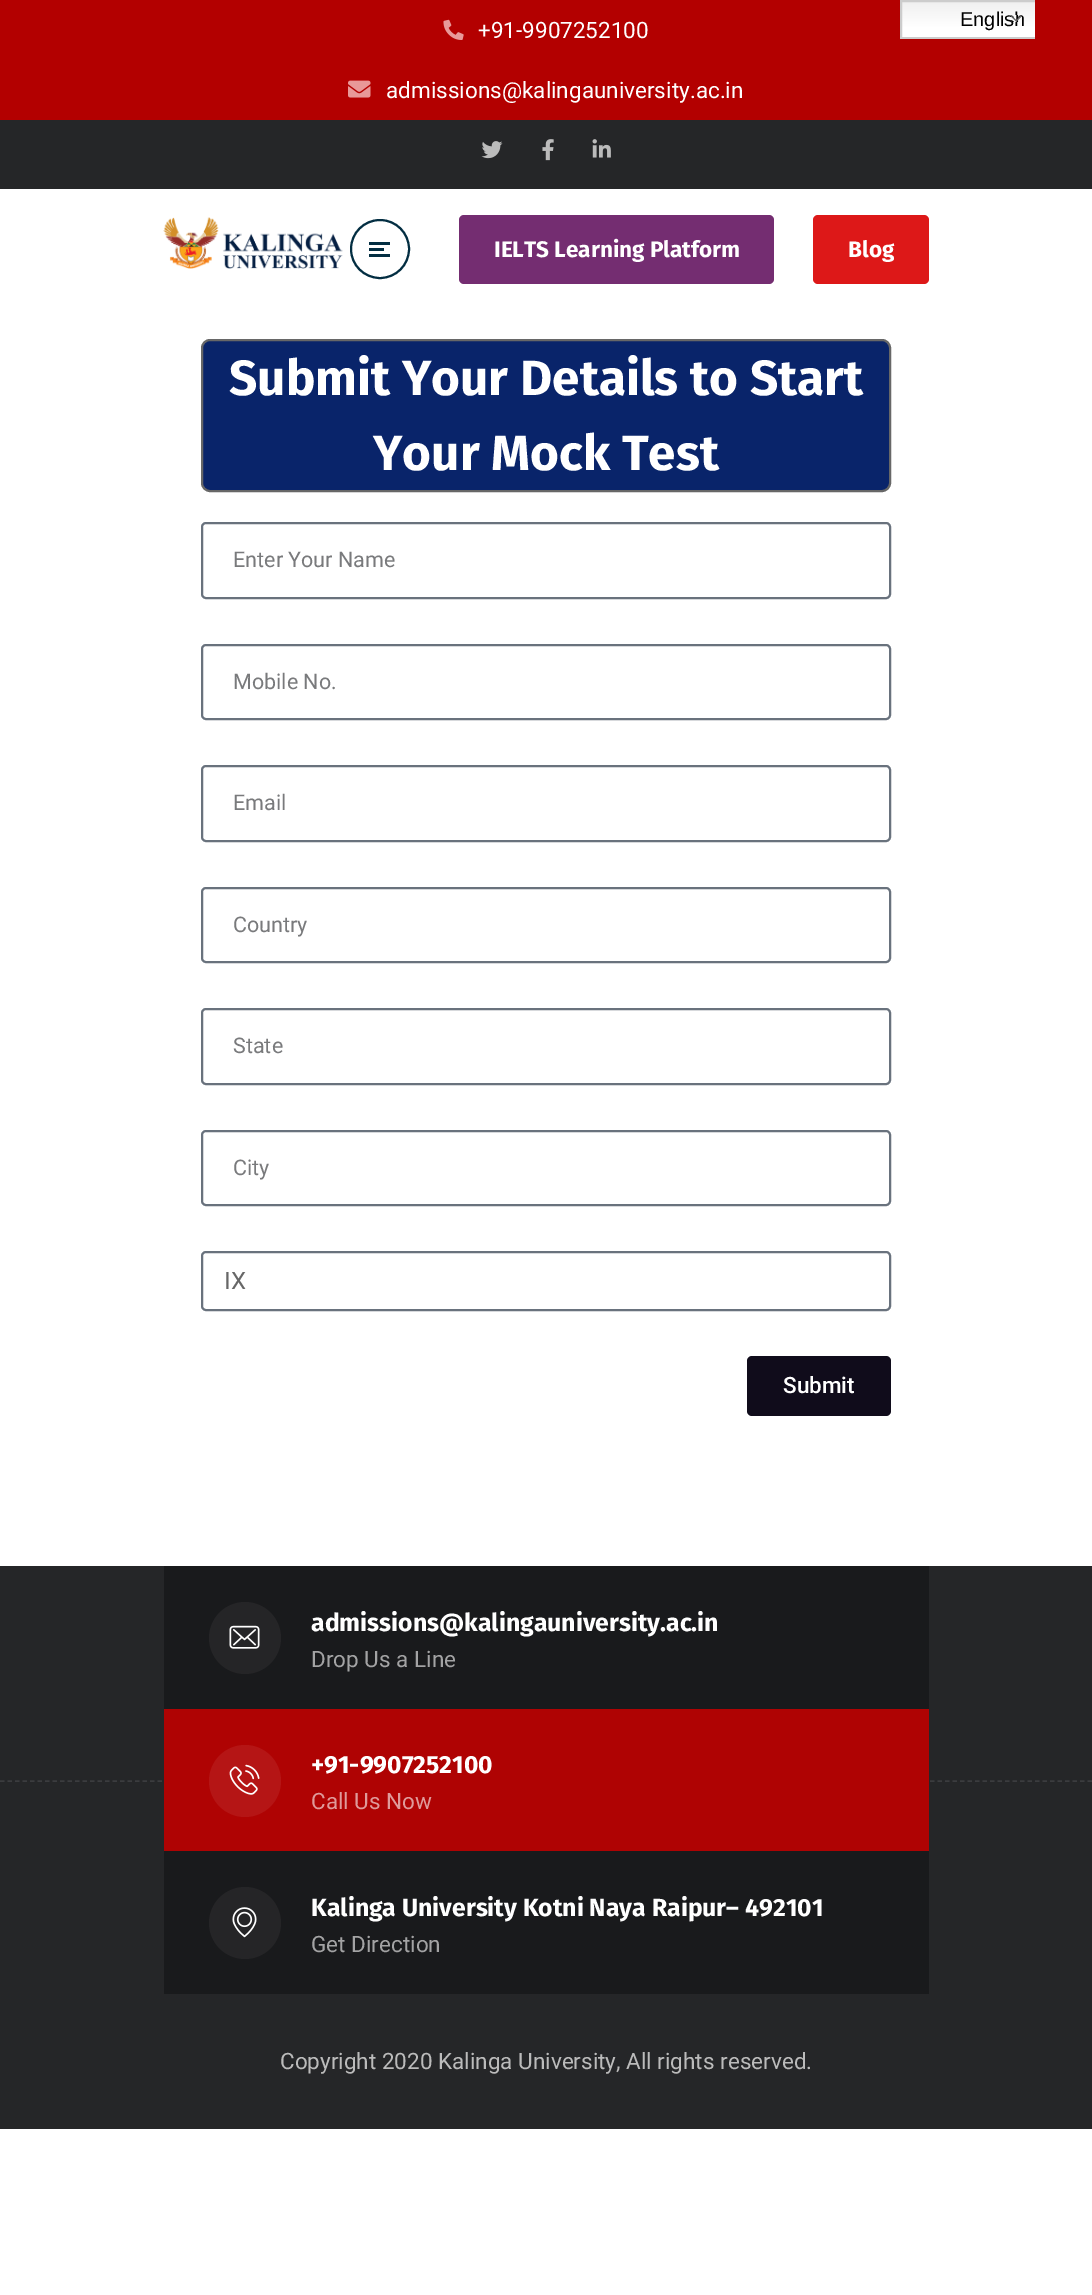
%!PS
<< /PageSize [1092 2295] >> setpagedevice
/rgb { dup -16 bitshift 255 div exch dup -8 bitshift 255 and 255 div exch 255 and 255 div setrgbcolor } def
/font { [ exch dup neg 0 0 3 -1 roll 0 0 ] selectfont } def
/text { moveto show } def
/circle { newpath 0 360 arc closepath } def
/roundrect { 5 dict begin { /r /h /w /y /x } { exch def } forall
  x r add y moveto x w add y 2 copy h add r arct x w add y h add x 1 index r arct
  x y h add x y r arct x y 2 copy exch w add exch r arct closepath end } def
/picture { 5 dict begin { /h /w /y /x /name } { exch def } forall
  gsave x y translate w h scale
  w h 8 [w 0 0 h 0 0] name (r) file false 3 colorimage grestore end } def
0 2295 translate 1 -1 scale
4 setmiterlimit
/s1 { /Roboto-Regular 22.5 font 16#FFFFFF rgb } def
/s2 { /FiraSans-Bold 22.5 font 16#FFFFFF rgb } def
/s3 { /FiraSans-Bold 49.5 font 16#FFFFFF rgb } def
/s4 { /Roboto-Regular 21.5 font 16#797A7C rgb } def
/s5 { /Roboto-Regular 24 font 16#676767 rgb } def
/s6 { /Roboto-Medium 22.5 font 16#FFFFFF rgb } def
/s7 { /FiraSans-Bold 24.75 font 16#FFFFFF rgb } def
/s8 { /Roboto-Regular 22.5 font 16#A3A3A4 rgb } def
/s9 { /Roboto-Regular 22.5 font 16#DF9A9A rgb } def
/s10 { /Roboto-Regular 22.5 font 16#BBBBBB rgb } def
/s11 { /LiberationSans-Regular 20 font 16#000000 rgb } def
16#FFFFFF rgb
0 0 1092 2295 rectfill
16#252628 rgb
0 120 1092 69 rectfill
16#B30000 rgb
0 0 1092 120 rectfill
(pic1.raw) 443 19 21 21 picture
s1
(+91-9907252100) 478 38 text
(pic2.raw) 348 80 23 18 picture
(admissions@kalingauniversity.ac.in) 386 98 text
(pic3.raw) 481 141 22 18 picture
(pic4.raw) 542 139 12 22 picture
(pic5.raw) 592 139 19 19 picture
(pic6.raw) 163 217 180 52 picture
16#032E42 rgb
2 setlinewidth
380 249 29 circle stroke
369 242 21 3 rectfill
369 248 15 3 rectfill
369 254 21 3 rectfill
16#742D71 rgb
459 215 315 69 5 roundrect fill
s2
(IELTS Learning Platform) 494 257 text
16#DD1818 rgb
813 215 116 69 5 roundrect fill
s2
(Blog) 848 257 text
16#09246A rgb
202 340 688 151 8 roundrect gsave fill grestore
16#676767 rgb
stroke
s3
(Submit Your Details to Start) 229 395 text
(Your Mock Test) 373 470 text
16#69727D rgb
202 523 688 75 4 roundrect stroke
s4
(Enter Your Name) 233 567 text
16#69727D rgb
202 645 688 74 4 roundrect stroke
s4
(Mobile No.) 233 689 text
16#69727D rgb
202 766 688 75 4 roundrect stroke
s4
(Email) 233 810 text
16#69727D rgb
202 888 688 74 4 roundrect stroke
s4
(Country) 233 932 text
16#69727D rgb
202 1009 688 75 4 roundrect stroke
s4
(State) 233 1053 text
16#69727D rgb
202 1131 688 74 4 roundrect stroke
s4
(City) 233 1175 text
16#69727D rgb
202 1252 688 58 4 roundrect stroke
s5
(IX) 224 1289 text
16#100C1B rgb
747 1356 144 60 5 roundrect fill
s6
(Submit) 783 1393 text
16#252628 rgb
0 1566 1092 563 rectfill
16#3B3C3F rgb
1.5 setlinewidth
[4.5 3] 0 setdash
0 1781 moveto 1092 1781 lineto stroke
16#191A1C rgb
164 1566 765 428 rectfill
16#252527 rgb
245 1638 36 circle fill
(pic7.raw) 229 1625 31 24 picture
s7
(admissions@kalingauniversity.ac.in) 311 1631 text
s8
(Drop Us a Line) 311 1667 text
16#AF0303 rgb
164 1709 765 142 rectfill
16#B51515 rgb
245 1781 36 circle fill
(pic8.raw) 229 1764 31 31 picture
s7
(+91-9907252100) 311 1773 text
s9
(Call Us Now) 311 1809 text
16#252527 rgb
245 1923 36 circle fill
(pic9.raw) 232 1907 25 31 picture
s7
(Kalinga University Kotni Naya Raipur– 492101) 311 1916 text
s8
(Get Direction) 311 1952 text
s10
(Copyright 2020 Kalinga University, All rights reserved.) 280 2069 text
gsave 902 2 moveto 1035 2 lineto 1035 37 lineto 902 37 lineto closepath clip newpath
<< /ShadingType 2 /ColorSpace /DeviceRGB /Coords [968 0 968 39] /Extend [true true] /Function << /FunctionType 3 /Domain [0 1] /Functions [<< /FunctionType 2 /Domain [0 1] /C0 [0.937 0.937 0.937] /C1 [1 1 1] /N 1 >> << /FunctionType 2 /Domain [0 1] /C0 [1 1 1] /C1 [1 1 1] /N 1 >>] /Bounds [0.7] /Encode [0 1 0 1] >> >> shfill grestore
gsave
900 0 135 39 rectclip
16#CCCCCC rgb
2 setlinewidth
[] 0 setdash
901 1 151 37 rectstroke
grestore
s11
(English) 960 26 text
(pic10.raw) 1011 15 11 7 picture
showpage
